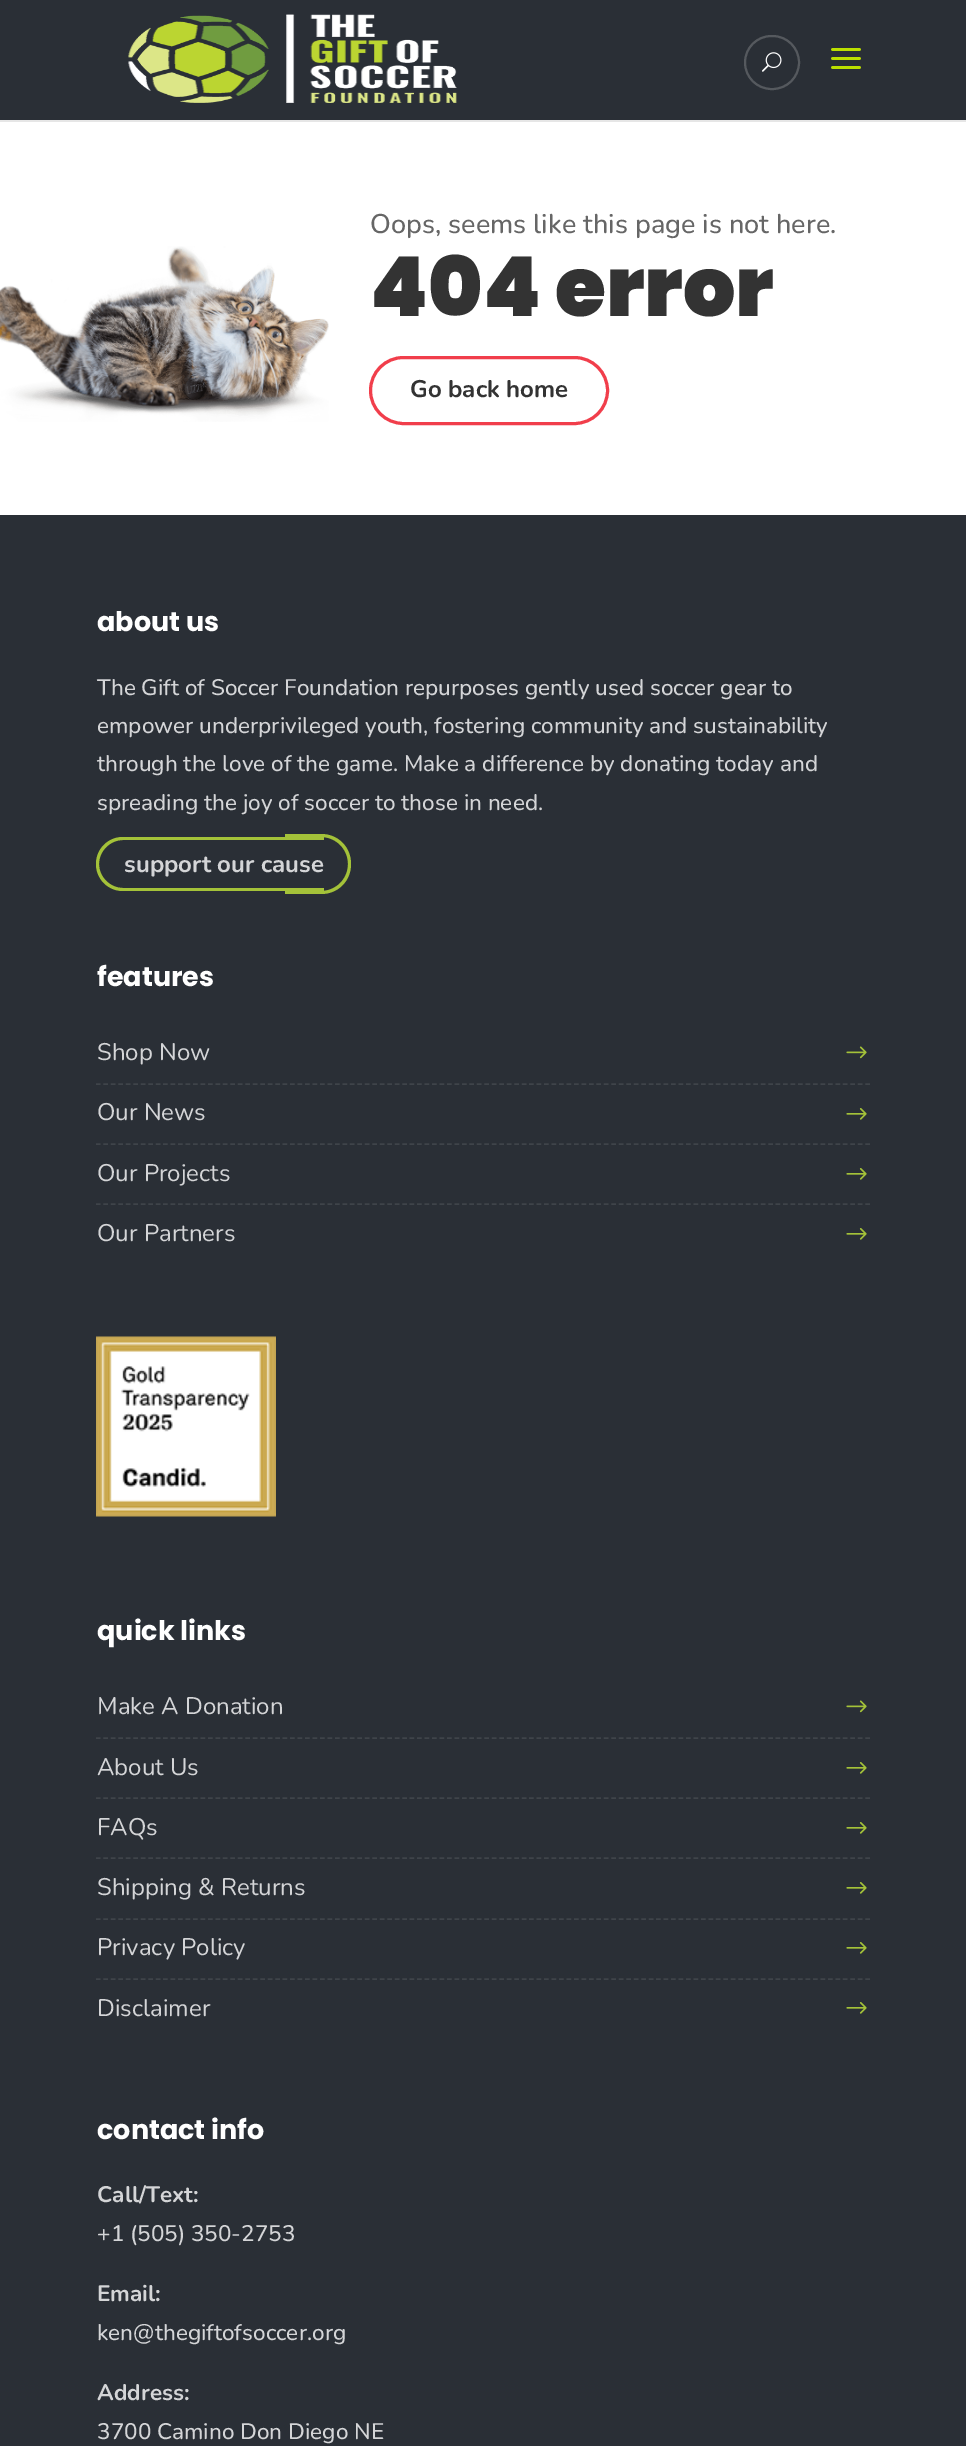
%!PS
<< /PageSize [966 2446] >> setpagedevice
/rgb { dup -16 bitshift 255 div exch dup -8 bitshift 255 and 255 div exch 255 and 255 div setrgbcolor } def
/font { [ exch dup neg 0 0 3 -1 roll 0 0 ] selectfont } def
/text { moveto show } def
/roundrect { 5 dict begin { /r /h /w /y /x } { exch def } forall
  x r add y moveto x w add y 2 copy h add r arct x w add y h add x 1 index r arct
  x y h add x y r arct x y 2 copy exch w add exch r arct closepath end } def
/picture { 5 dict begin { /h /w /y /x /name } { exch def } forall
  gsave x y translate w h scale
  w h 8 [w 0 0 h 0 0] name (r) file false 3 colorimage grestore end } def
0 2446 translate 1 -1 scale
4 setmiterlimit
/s1 { /Nunito-Medium 27 font 16#666666 rgb } def
/s2 { /Poppins-Black 82.5 font 16#333333 rgb } def
/s3 { /Nunito-Bold 24 font 16#333333 rgb } def
/s4 { /Poppins-Bold 27 font 16#FFFFFF rgb } def
/s5 { /Nunito-Medium 22.5 font 16#D4D5D7 rgb } def
/s6 { /Nunito-Bold 24 font 16#D4D5D7 rgb } def
/s7 { /Nunito-Regular 24 font 16#D4D5D7 rgb } def
/s8 { /Nunito-Bold 22.5 font 16#D4D5D7 rgb } def
16#FFFFFF rgb
0 0 966 2446 rectfill
16#E6E6E6 rgb
0 120 966 2 rectfill
16#2A2F36 rgb
0 0 966 120 rectfill
(pic1.raw) 128 14 329 89 picture
16#55595E rgb
2 setlinewidth
745 36 54 53 26.5 roundrect stroke
(pic2.raw) 762 52 20 20 picture
(pic3.raw) 831 48 30 21 picture
(pic4.raw) 0 246 329 176 picture
s1
(Oops, seems like this page is not here.) 370 233 text
s2
(404 error) 370 316 text
16#F13E4B rgb
3 setlinewidth
370.5 357.5 237 66 33 roundrect stroke
s3
(Go back home) 410 397 text
16#2A2F36 rgb
0 515 966 1931 rectfill
s4
(about us) 97 631 text
s5
(The Gift of Soccer Foundation repurposes gently used soccer gear to) 97 695 text
(empower underprivileged youth, fostering community and sustainability) 97 733 text
(through the love of the game. Make a difference by donating today and) 97 771 text
(spreading the joy of soccer to those in need.) 97 810 text
16#A4C239 rgb
123 837 moveto 324 837 lineto 324 891 lineto 123 891 lineto 108 891 96 879 96 864 curveto 96 849 108 837 123 837 curveto closepath 123 840 moveto 324 840 lineto 324 888 lineto 123 888 lineto 110 888 99 877 99 864 curveto 99 851 110 840 123 840 curveto closepath eofill
285 834 moveto 321 834 lineto 338 834 351 847 351 864 curveto 351 881 338 894 321 894 curveto 285 894 lineto closepath 285 837 moveto 321 837 lineto 336 837 348 849 348 864 curveto 348 879 336 891 321 891 curveto 285 891 lineto closepath eofill
s6
(support our cause) 124 872 text
s4
(features) 97 986 text
s7
(Shop Now) 97 1060 text
(pic5.raw) 846 1046 21 13 picture
16#3F444A rgb
1.5 setlinewidth
[4.5 2.97] 0 setdash
96 1084 moveto 870 1084 lineto stroke
s7
(Our News) 97 1120 text
(pic6.raw) 846 1108 21 12 picture
16#3F444A rgb
96 1144 moveto 870 1144 lineto stroke
s7
(Our Projects) 97 1181 text
(pic6.raw) 846 1168 21 12 picture
16#3F444A rgb
96 1204 moveto 870 1204 lineto stroke
s7
(Our Partners) 97 1241 text
(pic6.raw) 846 1228 21 12 picture
(pic7.raw) 96 1336 180 181 picture
s4
(quick links) 97 1640 text
s7
(Make A Donation) 97 1714 text
(pic5.raw) 846 1700 21 13 picture
16#3F444A rgb
96 1738 moveto 870 1738 lineto stroke
s7
(About Us) 97 1775 text
(pic6.raw) 846 1762 21 12 picture
16#3F444A rgb
96 1798 moveto 870 1798 lineto stroke
s7
(FAQs) 97 1835 text
(pic6.raw) 846 1822 21 12 picture
16#3F444A rgb
96 1858 moveto 870 1858 lineto stroke
s7
(Shipping & Returns) 97 1895 text
(pic6.raw) 846 1882 21 12 picture
16#3F444A rgb
96 1919 moveto 870 1919 lineto stroke
s7
(Privacy Policy) 97 1955 text
(pic6.raw) 846 1942 21 12 picture
16#3F444A rgb
96 1979 moveto 870 1979 lineto stroke
s7
(Disclaimer) 97 2016 text
(pic6.raw) 846 2002 21 12 picture
s4
(contact info) 97 2139 text
s8
(Call/Text:) 97 2202 text
s5
(+1 \(505\) 350-2753) 97 2241 text
s8
(Email:) 97 2301 text
s5
(ken@thegiftofsoccer.org) 97 2340 text
s8
(Address:) 97 2400 text
s5
(3700 Camino Don Diego NE) 97 2439 text
showpage
